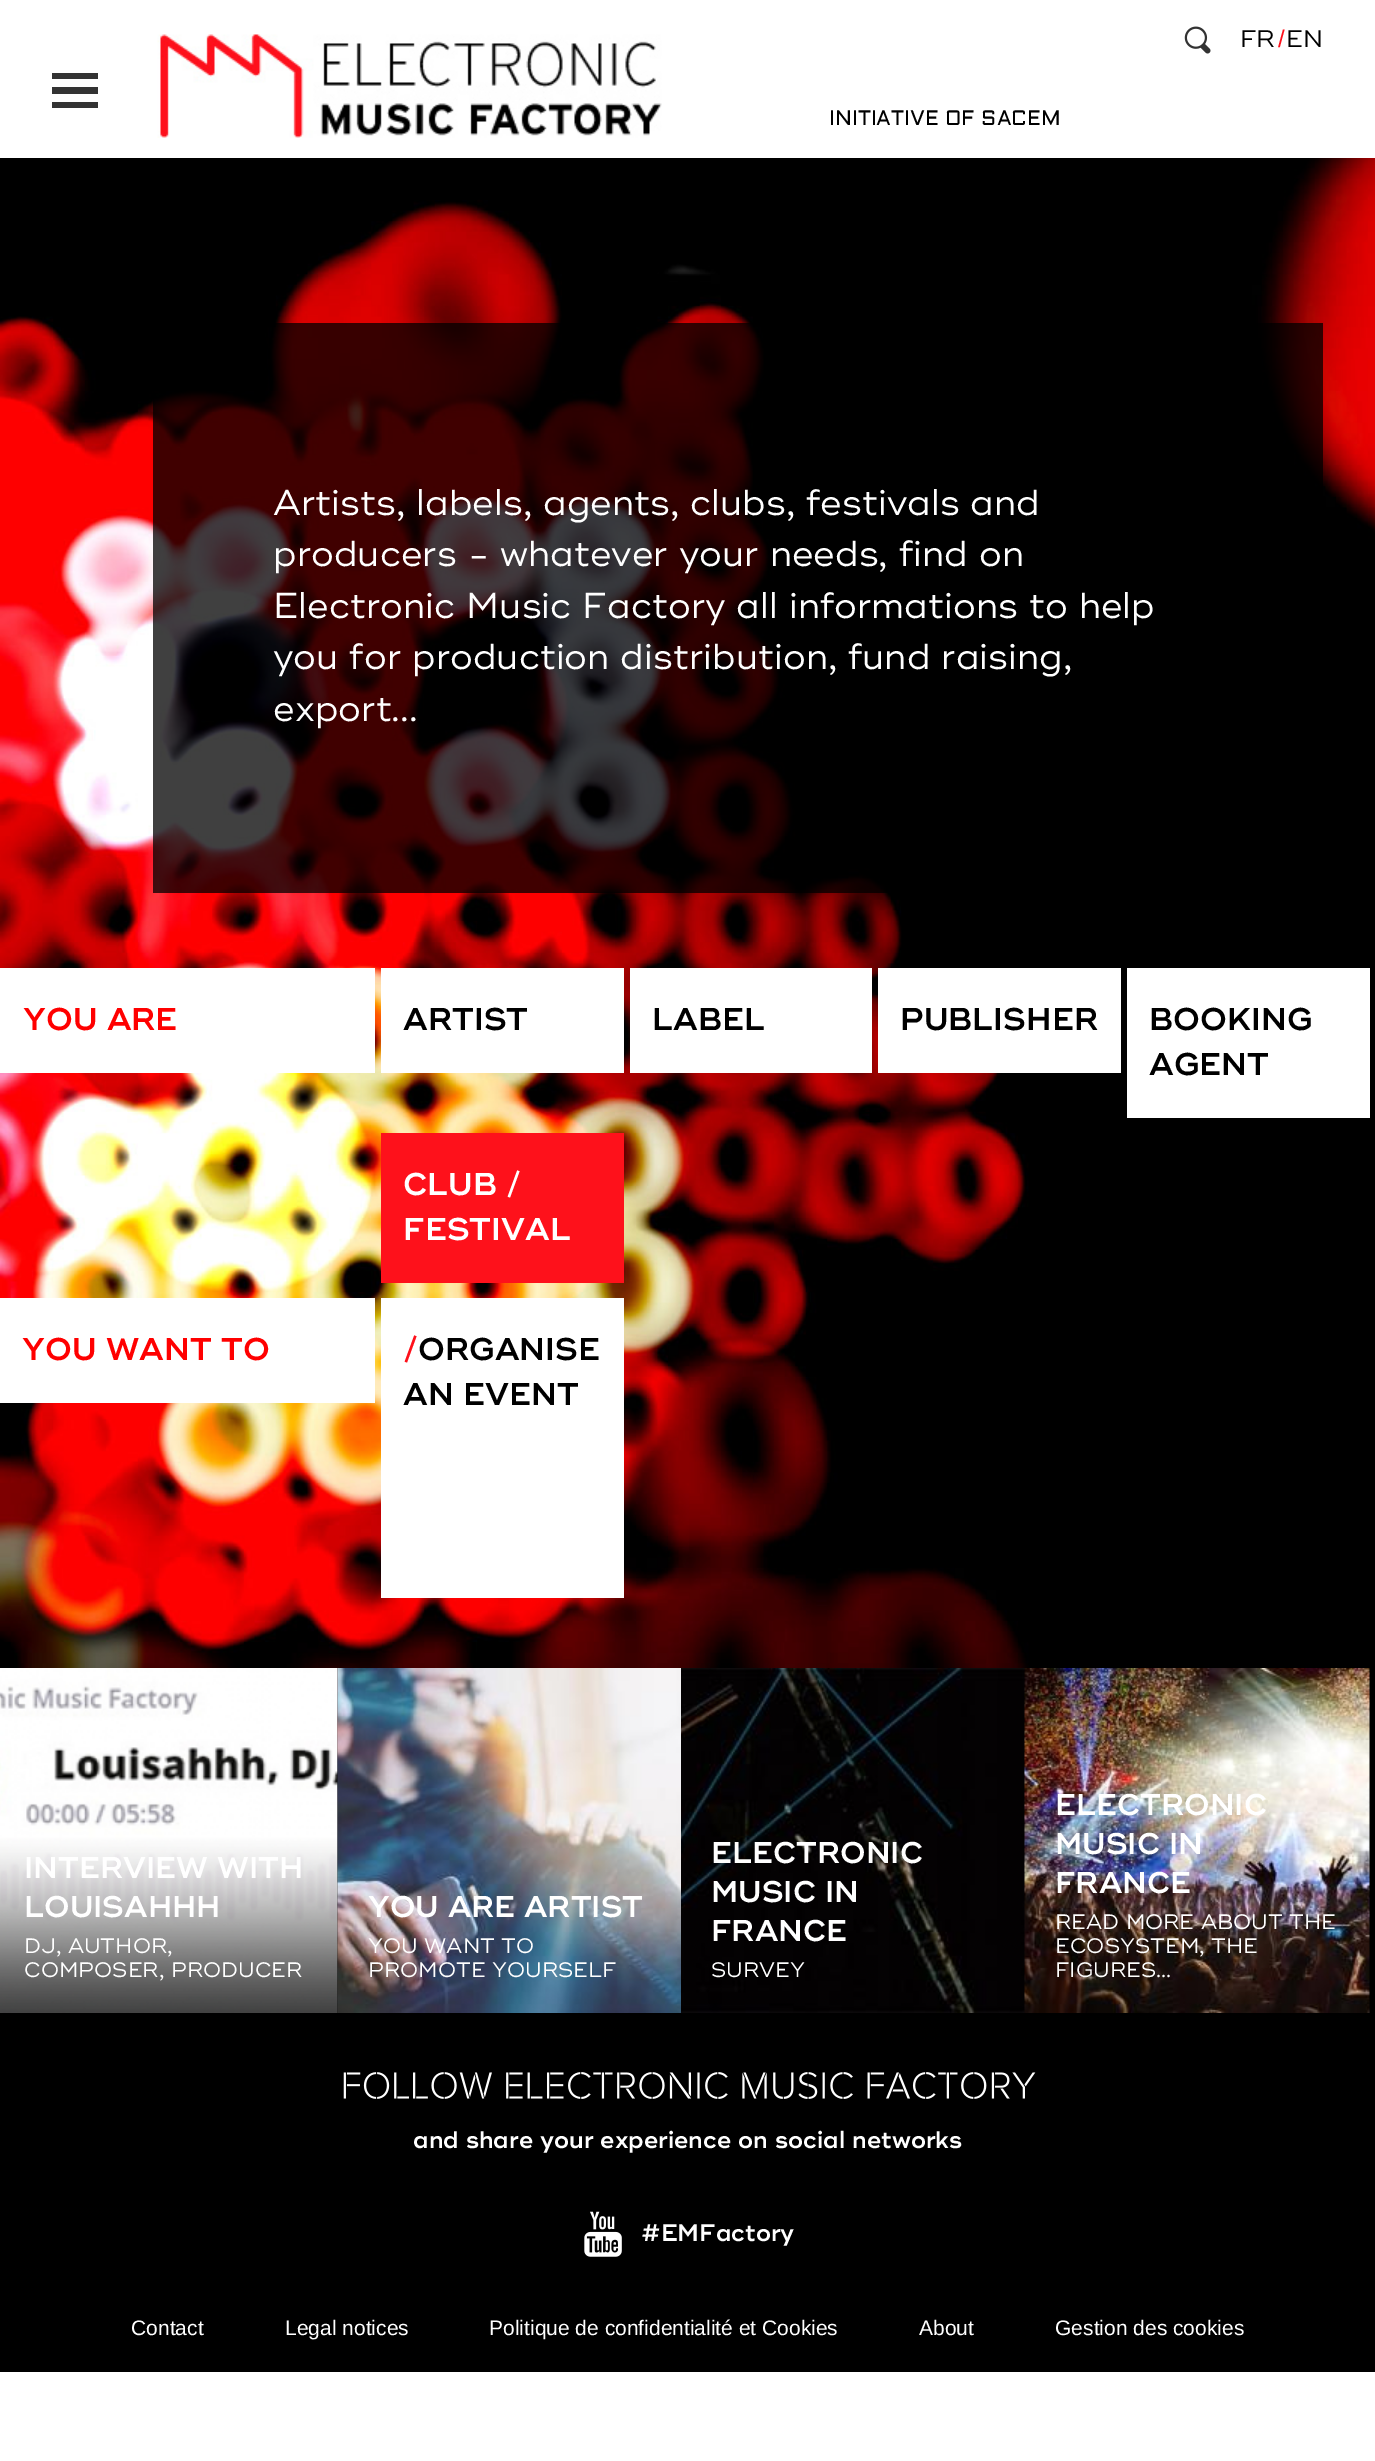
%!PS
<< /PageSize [1375 2461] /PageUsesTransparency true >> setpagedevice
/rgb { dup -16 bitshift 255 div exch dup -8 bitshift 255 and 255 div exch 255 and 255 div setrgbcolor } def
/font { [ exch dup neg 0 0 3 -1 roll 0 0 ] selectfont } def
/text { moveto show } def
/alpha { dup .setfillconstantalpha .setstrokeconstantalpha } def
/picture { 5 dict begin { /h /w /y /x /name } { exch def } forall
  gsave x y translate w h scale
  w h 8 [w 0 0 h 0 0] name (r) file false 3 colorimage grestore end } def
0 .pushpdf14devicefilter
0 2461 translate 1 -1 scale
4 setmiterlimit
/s1 { /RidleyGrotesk-Regular 24 font 16#000000 rgb } def
/s2 { /LiberationSans-Regular 24 font 16#FE111B rgb } def
/s3 { /Aldrich-Regular 21 font 16#000000 rgb } def
/s4 { /RidleyGrotesk-Regular 36 font 16#FFFFFF rgb } def
/s5 { /RidleyGrotesk-SemiBold 31.5 font 16#FF0000 rgb } def
/s6 { /RidleyGrotesk-SemiBold 31.5 font 16#000000 rgb } def
/s7 { /RidleyGrotesk-SemiBold 31.5 font 16#FFFFFF rgb } def
/s8 { /RidleyGrotesk-SemiBold 31.5 font 16#FE111B rgb } def
/s9 { /RidleyGrotesk-SemiBold 30 font 16#FFFFFF rgb } def
/s10 { /RidleyGrotesk-Regular 21 font 16#FFFFFF rgb } def
/s11 { /RidleyGrotesk-SemiBold 24 font 16#FFFFFF rgb } def
/s12 { /LiberationSans-Regular 21 font 16#FFFFFF rgb } def
16#FFFFFF rgb
0 0 1375 2461 rectfill
(pic1.raw) 1184 26 27 28 picture
(pic2.raw) 157 34 505 104 picture
s1
(FR) 1240 47 text
s2
(/) 1278 47 text
s1
(EN) 1286 47 text
16#333333 rgb
52 73 moveto 98 73 lineto 98 79 lineto 52 79 lineto closepath 52 87 moveto 98 87 lineto 98 94 lineto 52 94 lineto closepath 52 102 moveto 98 102 lineto 98 108 lineto 52 108 lineto closepath fill
s3
(INITIATIVE OF SACEM) 829 125 text
(pic3.raw) 0 158 1375 1855 picture
0.75 alpha
153 323 1170 570 rectfill
1 alpha
s4
(Artists, labels, agents, clubs, festivals and) 273 515 text
(producers - whatever your needs, find on) 273 566 text
(Electronic Music Factory all informations to help) 273 618 text
(you for production distribution, fund raising,) 273 669 text
(export...) 273 721 text
0 968 375 105 rectfill
s5
(YOU ARE) 23 1030 text
16#FFFFFF rgb
381 968 243 105 rectfill
s6
(ARTIST) 403 1030 text
16#FFFFFF rgb
630 968 242 105 rectfill
s6
(LABEL) 652 1030 text
16#FFFFFF rgb
878 968 243 105 rectfill
s6
(PUBLISHER) 900 1030 text
16#FFFFFF rgb
1127 968 243 150 rectfill
s6
(BOOKING) 1149 1030 text
(AGENT) 1149 1075 text
16#FE111B rgb
381 1133 243 150 rectfill
s7
(CLUB /) 403 1195 text
(FESTIVAL) 403 1240 text
0 1298 375 105 rectfill
s5
(YOU WANT TO) 22 1360 text
16#FFFFFF rgb
381 1298 243 300 rectfill
s8
(/) 403 1360 text
s6
(ORGANISE) 418 1360 text
(AN EVENT) 403 1405 text
(pic4.raw) 0 1668 338 345 picture
s9
(INTERVIEW WITH) 24 1878 text
(LOUISAHHH) 24 1917 text
s10
(DJ, AUTHOR,) 24 1953 text
(COMPOSER, PRODUCER) 24 1977 text
(pic5.raw) 337 1668 344 345 picture
s9
(YOU ARE ARTIST) 368 1917 text
s10
(YOU WANT TO) 368 1953 text
(PROMOTE YOURSELF) 368 1977 text
(pic6.raw) 681 1668 344 345 picture
s9
(ELECTRONIC) 711 1863 text
(MUSIC IN) 711 1902 text
(FRANCE) 711 1941 text
s10
(SURVEY) 711 1977 text
(pic7.raw) 1024 1668 346 345 picture
s9
(ELECTRONIC) 1055 1815 text
(MUSIC IN) 1055 1854 text
(FRANCE) 1055 1893 text
s10
(READ MORE ABOUT THE) 1055 1929 text
(ECOSYSTEM, THE) 1055 1953 text
(FIGURES...) 1055 1977 text
16#000000 rgb
0 2013 1375 359 rectfill
(pic8.raw) 343 2072 693 27 picture
s11
(and share your experience on social networks) 413 2148 text
(pic9.raw) 584 2211 38 46 picture
(#EMFactory) 641 2241 text
s12
(Contact) 131 2335 text
(Legal notices) 285 2335 text
(Politique de confidentialité et Cookies) 489 2335 text
(About) 919 2335 text
(Gestion des cookies) 1055 2335 text
.poppdf14devicefilter showpage
